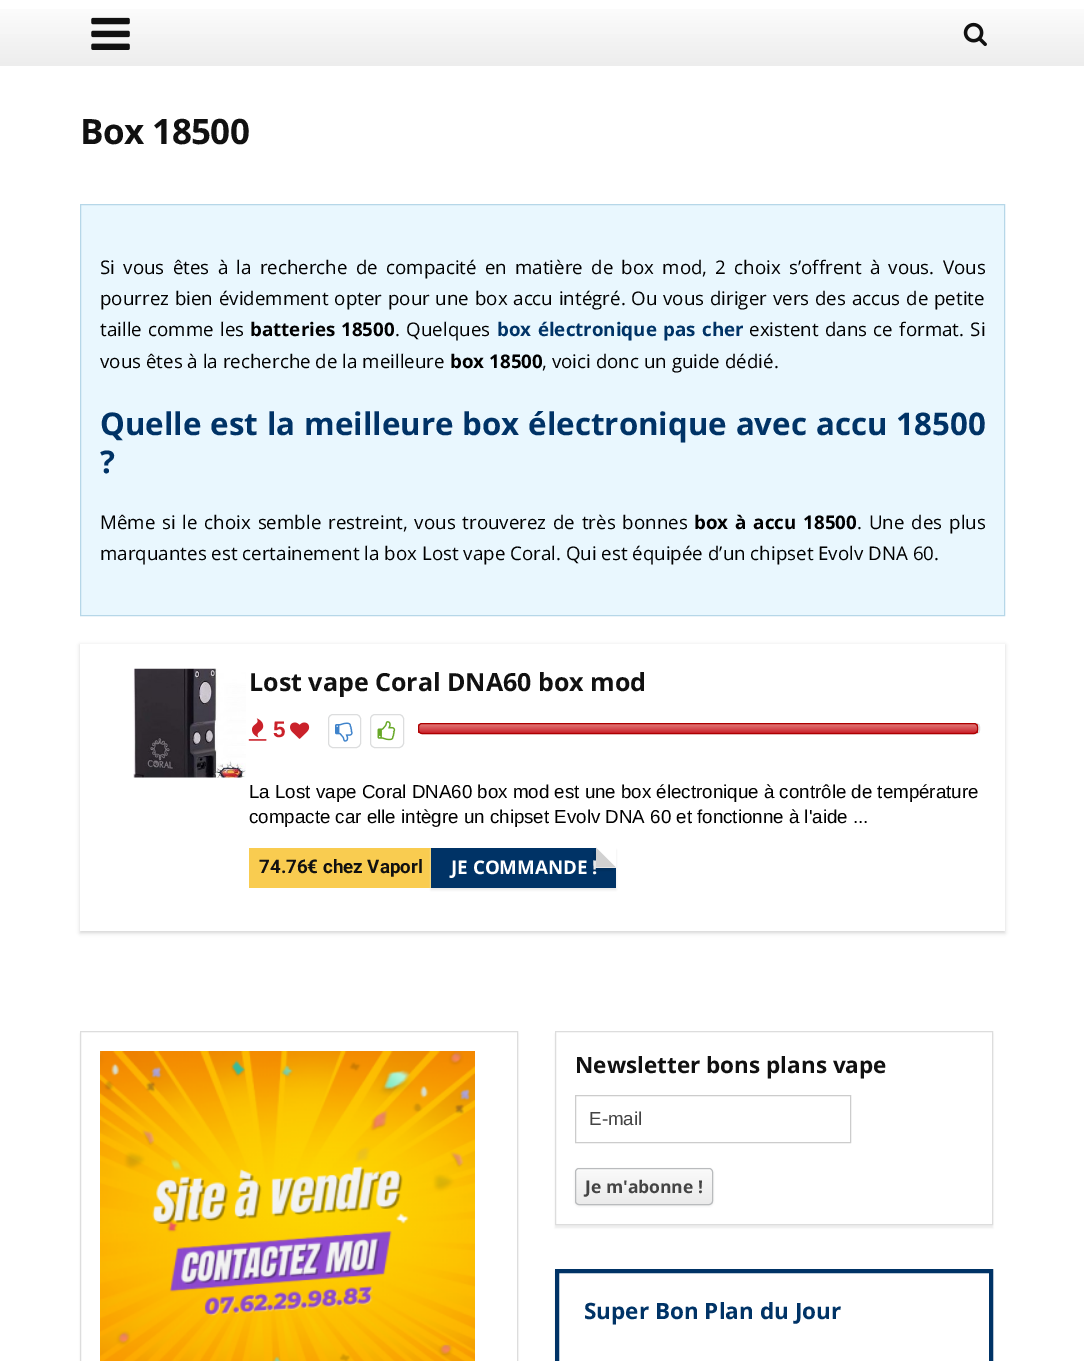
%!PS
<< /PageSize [1084 1361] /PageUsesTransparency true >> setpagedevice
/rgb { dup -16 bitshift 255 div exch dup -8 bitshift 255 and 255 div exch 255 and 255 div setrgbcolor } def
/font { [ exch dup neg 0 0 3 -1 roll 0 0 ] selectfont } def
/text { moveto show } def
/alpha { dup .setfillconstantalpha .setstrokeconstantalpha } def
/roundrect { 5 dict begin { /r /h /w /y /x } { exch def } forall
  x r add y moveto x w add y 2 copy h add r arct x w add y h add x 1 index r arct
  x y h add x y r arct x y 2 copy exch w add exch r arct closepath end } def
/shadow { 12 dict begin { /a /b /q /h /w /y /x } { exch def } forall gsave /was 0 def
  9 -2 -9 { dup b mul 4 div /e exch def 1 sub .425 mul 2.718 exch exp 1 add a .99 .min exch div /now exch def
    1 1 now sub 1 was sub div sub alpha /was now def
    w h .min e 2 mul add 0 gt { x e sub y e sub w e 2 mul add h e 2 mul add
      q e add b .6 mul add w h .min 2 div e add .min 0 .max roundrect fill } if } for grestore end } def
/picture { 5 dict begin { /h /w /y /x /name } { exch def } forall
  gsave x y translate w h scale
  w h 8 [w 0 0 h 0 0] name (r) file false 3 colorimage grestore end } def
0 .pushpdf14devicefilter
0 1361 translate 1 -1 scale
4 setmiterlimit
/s1 { /OpenSans-Regular 18.75 font 16#000000 rgb } def
/s2 { /OpenSans-Bold 18.75 font 16#000000 rgb } def
/s3 { /OpenSans-Bold 31.25 font 16#003366 rgb } def
/s4 { /OpenSans-Bold 25 font 16#111111 rgb } def
/s5 { /LiberationSans-Bold 22.5 font 16#CA212A rgb } def
/s6 { /LiberationSans-Regular 18.75 font 16#000000 rgb } def
/s7 { /Roboto-Bold 18.75 font 16#111111 rgb } def
/s8 { /OpenSans-Bold 18.75 font 16#FFFFFF rgb } def
/s9 { /OpenSans-Bold 22.5 font 16#111111 rgb } def
/s10 { /LiberationSans-Regular 18.75 font 16#444444 rgb } def
/s11 { /OpenSans-Bold 17.5 font 16#444444 rgb } def
/s12 { /OpenSans-Bold 22.5 font 16#003366 rgb } def
16#FFFFFF rgb
0 0 1084 1361 rectfill
gsave 0 9 moveto 1084 9 lineto 1084 66 lineto 0 66 lineto closepath clip newpath
<< /ShadingType 2 /ColorSpace /DeviceRGB /Coords [543 0 543 66] /Extend [true true] /Function << /FunctionType 3 /Domain [0 1] /Functions [<< /FunctionType 2 /Domain [0 1] /C0 [1 1 1] /C1 [0.965 0.965 0.965] /N 1 >> << /FunctionType 2 /Domain [0 1] /C0 [0.965 0.965 0.965] /C1 [0.929 0.929 0.929] /N 1 >>] /Bounds [0.47] /Encode [0 1 0 1] >> >> shfill grestore
(pic1.raw) 91 17 39 33 picture
(pic2.raw) 963 22 24 25 picture
/OpenSans-Bold 35 font
16#111111 rgb
80 144 moveto -0.6 0 (Box 18500) ashow
16#E9F7FE rgb
80.5 204.5 moveto 1004.5 204.5 lineto 1004.5 615.5 lineto 80.5 615.5 lineto closepath gsave fill grestore
16#B6D7E8 rgb
stroke
/OpenSans-Regular 18.75 font
16#000000 rgb
100 274 moveto 3.4 0 32 (Si vous êtes à la recherche de compacité en matière de box mod, 2 choix s’offrent à vous. Vous) widthshow
100 305 moveto 0.9 0 32 (pourrez bien évidemment opter pour une box accu intégré. Ou vous diriger vers des accus de petite) widthshow
100 336 moveto 1.5 0 32 (taille comme les) widthshow
/OpenSans-Bold 18.75 font
250 336 moveto 1 0 32 (batteries 18500) widthshow
/OpenSans-Regular 18.75 font
395 336 moveto 1.5 0 32 (. Quelques) widthshow
/OpenSans-Bold 18.75 font
16#003366 rgb
497 336 moveto 1.5 0 32 (box électronique pas cher) widthshow
/OpenSans-Regular 18.75 font
16#000000 rgb
749 336 moveto 1.5 0 32 (existent dans ce format. Si) widthshow
(vous êtes à la recherche de la meilleure) 100 368 text
s2
(box 18500) 450 368 text
s1
(, voici donc un guide dédié.) 542 368 text
/OpenSans-Bold 31.25 font
16#003366 rgb
100 435 moveto 0.75 0 32 (Quelle est la meilleure box électronique avec accu 18500) widthshow
(?) 100 473 text
/OpenSans-Regular 18.75 font
16#000000 rgb
100 529 moveto 1.9 0 32 (Même si le choix semble restreint, vous trouverez de très bonnes) widthshow
/OpenSans-Bold 18.75 font
694 529 moveto 2 0 32 (box à accu 18500) widthshow
/OpenSans-Regular 18.75 font
857 529 moveto 2 0 32 (. Une des plus) widthshow
(marquantes est certainement la box Lost vape Coral. Qui est équipée d’un chipset Evolv DNA 60.) 100 560 text
gsave
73 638 moveto 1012 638 lineto 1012 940 lineto 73 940 lineto closepath 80 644 moveto 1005 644 lineto 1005 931 lineto 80 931 lineto closepath eoclip newpath
80 645 925 288 0 2 0.16 shadow
grestore
(pic3.raw) 133 668 113 110 picture
s4
(Lost vape Coral DNA60 box mod) 249 691 text
(pic4.raw) 248 718 19 23 picture
s5
(5) 273 737 text
(pic5.raw) 290 722 20 17 picture
16#DCDDDE rgb
328.5 714.5 32 33 4.5 roundrect stroke
(pic6.raw) 335 722 18 20 picture
370.5 714.5 33 33 4.5 roundrect stroke
(pic7.raw) 377 721 19 20 picture
gsave
418 723 562 11 4 roundrect clip newpath
gsave 418 724 moveto 980 724 lineto 980 733 lineto 418 733 lineto closepath clip newpath
<< /ShadingType 2 /ColorSpace /DeviceRGB /Coords [699 724 699 733] /Extend [true true] /Function << /FunctionType 3 /Domain [0 1] /Functions [<< /FunctionType 2 /Domain [0 1] /C0 [0.961 0.961 0.961] /C1 [0.961 0.961 0.961] /N 1 >> << /FunctionType 2 /Domain [0 1] /C0 [0.941 0.941 0.941] /C1 [0.933 0.933 0.933] /N 1 >>] /Bounds [0.14] /Encode [0 1 0 1] >> >> shfill grestore
grestore
16#DDDDDD rgb
418.5 723.5 561 10 3.5 roundrect stroke
gsave
418 723 560 11 4 roundrect clip newpath
gsave 418 724 moveto 978 724 lineto 978 733 lineto 418 733 lineto closepath clip newpath
<< /ShadingType 2 /ColorSpace /DeviceRGB /Coords [698 724 698 733] /Extend [true true] /Function << /FunctionType 3 /Domain [0 1] /Functions [<< /FunctionType 2 /Domain [0 1] /C0 [0.871 0.431 0.431] /C1 [0.871 0.431 0.431] /N 1 >> << /FunctionType 2 /Domain [0 1] /C0 [0.871 0.431 0.431] /C1 [0.792 0.129 0.165] /N 1 >>] /Bounds [0.14] /Encode [0 1 0 1] >> >> shfill grestore
grestore
16#AC0000 rgb
418.5 723.5 559 10 3.5 roundrect stroke
s6
(La Lost vape Coral DNA60 box mod est une box électronique à contrôle de température) 249 798 text
(compacte car elle intègre un chipset Evolv DNA 60 et fonctionne à l'aide ...) 249 823 text
16#F9CC50 rgb
249 848 182 40 rectfill
s7
(74.76€ chez Vaporl) 259 873 text
16#E7E7E7 rgb
431 850 185 40 0 1 1 shadow
16#003366 rgb
431 848 185 40 rectfill
s8
(JE COMMANDE !) 451 874 text
16#000000 rgb
593 851 20 20 0 1 0.1 shadow
16#FFFFFF rgb
596 848 20 20 rectfill
16#D1D1D1 rgb
616 867.5 moveto 596 867.5 lineto 596 847.5 lineto closepath fill
16#ECECEC rgb
80 1034 438 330 0 1 1 shadow
16#FFFFFF rgb
81 1033 436 328 rectfill
16#DDDDDD rgb
80.5 1031.5 437 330 rectstroke
(pic8.raw) 100 1051 375 310 picture
16#ECECEC rgb
555 1034 438 194 0 1 1 shadow
16#FFFFFF rgb
556 1033 436 191 rectfill
16#DDDDDD rgb
555.5 1031.5 437 193 rectstroke
s9
(Newsletter bons plans vape) 575 1073 text
16#CCCCCC rgb
575.5 1095.5 275 47 rectstroke
s10
(E-mail) 589 1125 text
16#000000 rgb
575 1169 138 37 4 1 0.08 shadow
gsave
575 1168 138 37 4 roundrect clip newpath
gsave 575 1169 moveto 713 1169 lineto 713 1204 lineto 575 1204 lineto closepath clip newpath
<< /ShadingType 2 /ColorSpace /DeviceRGB /Coords [644 1169 644 1204] /Extend [true true] /Function << /FunctionType 3 /Domain [0 1] /Functions [<< /FunctionType 2 /Domain [0 1] /C0 [1 1 1] /C1 [1 1 1] /N 1 >> << /FunctionType 2 /Domain [0 1] /C0 [0.976 0.976 0.976] /C1 [0.922 0.922 0.922] /N 1 >>] /Bounds [0.04] /Encode [0 1 0 1] >> >> shfill grestore
grestore
16#B9BBBD rgb
575.5 1168.5 137 36 3.5 roundrect stroke
s11
(Je m'abonne !) 585 1193 text
16#ECECEC rgb
555 1271 438 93 0 1 1 shadow
16#FFFFFF rgb
557 1271 moveto 991 1271 lineto 991 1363 lineto 557 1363 lineto closepath gsave fill grestore
16#003366 rgb
4 setlinewidth
stroke
s12
(Super Bon Plan du Jour) 584 1319 text
.poppdf14devicefilter showpage
